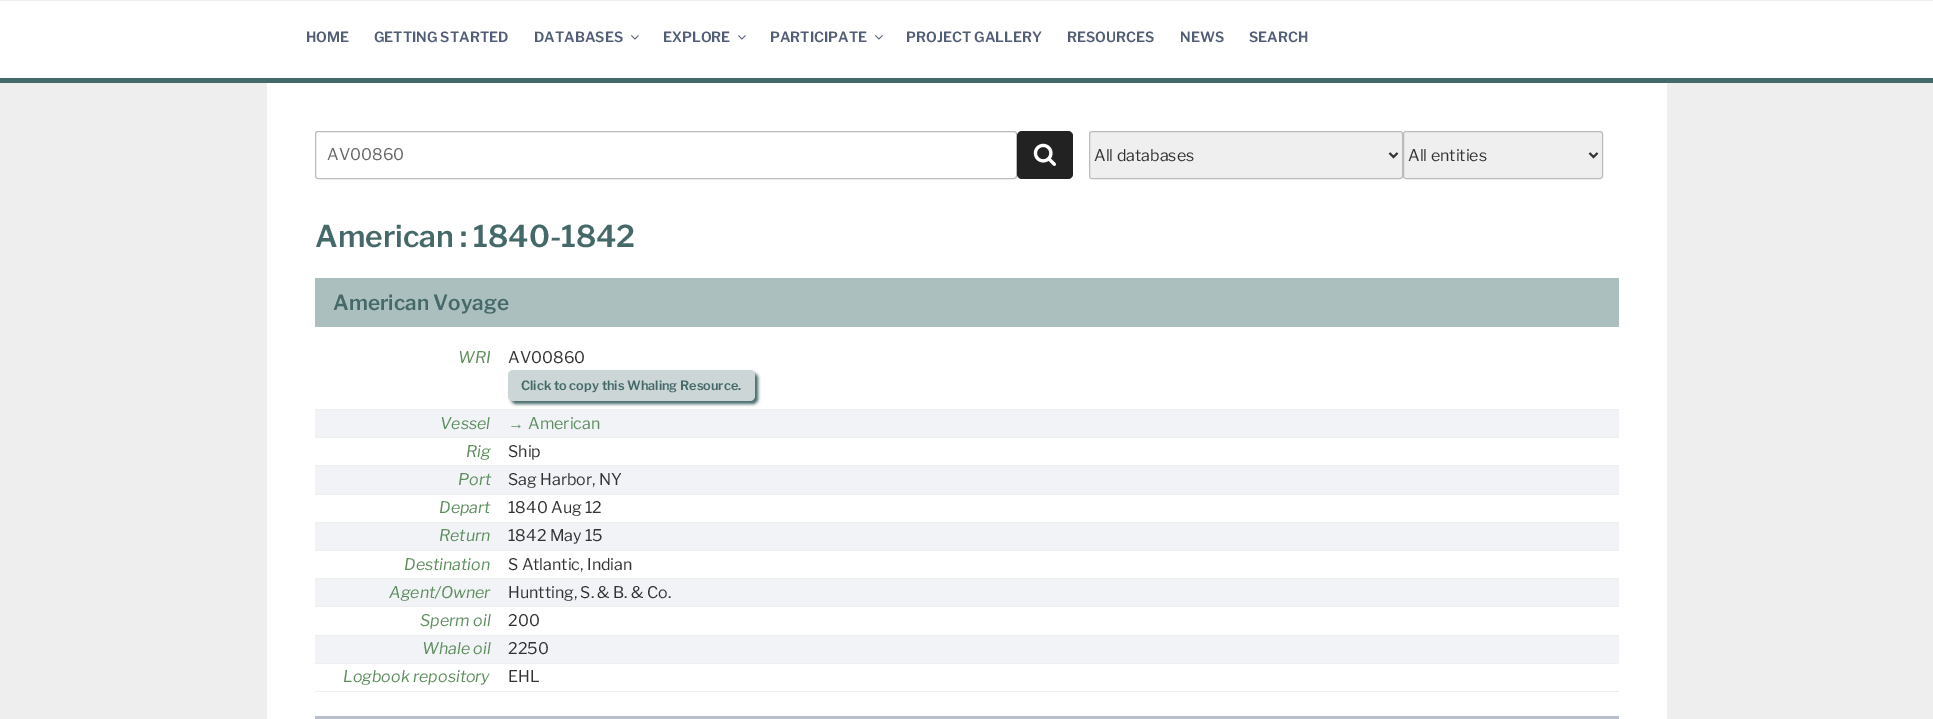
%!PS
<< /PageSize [1933 719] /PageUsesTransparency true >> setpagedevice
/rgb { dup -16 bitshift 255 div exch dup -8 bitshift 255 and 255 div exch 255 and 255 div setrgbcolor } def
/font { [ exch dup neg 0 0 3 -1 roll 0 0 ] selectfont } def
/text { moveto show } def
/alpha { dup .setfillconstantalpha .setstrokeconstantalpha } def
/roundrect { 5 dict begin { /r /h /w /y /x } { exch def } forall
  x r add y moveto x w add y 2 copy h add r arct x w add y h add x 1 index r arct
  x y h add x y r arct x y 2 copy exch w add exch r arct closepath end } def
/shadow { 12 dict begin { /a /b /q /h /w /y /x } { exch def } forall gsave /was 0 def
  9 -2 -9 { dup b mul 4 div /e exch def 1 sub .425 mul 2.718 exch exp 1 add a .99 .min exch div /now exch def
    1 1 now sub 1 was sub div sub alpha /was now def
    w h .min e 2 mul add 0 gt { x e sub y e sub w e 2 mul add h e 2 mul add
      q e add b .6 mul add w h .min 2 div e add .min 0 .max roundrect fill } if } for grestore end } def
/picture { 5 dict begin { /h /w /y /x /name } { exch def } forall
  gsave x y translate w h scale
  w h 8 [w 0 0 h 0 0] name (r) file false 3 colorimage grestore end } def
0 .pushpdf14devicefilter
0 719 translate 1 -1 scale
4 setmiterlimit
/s1 { /LibreFranklin-SemiBold 14 font 16#525D76 rgb } def
/s2 { /LibreFranklin-Regular 16 font 16#666666 rgb } def
/s3 { /LibreFranklin-Regular 16 font 16#333333 rgb } def
/s4 { /LibreFranklin-SemiBold 30 font 16#456969 rgb } def
/s5 { /LibreFranklin-SemiBold 20.75 font 16#456969 rgb } def
/s6 { /LibreFranklin-Italic 16 font 16#5D8D5D rgb } def
/s7 { /LibreFranklin-SemiBold 12.75 font 16#456969 rgb } def
/s8 { /LiberationSans-Regular 16 font 16#5D8D5D rgb } def
/s9 { /LibreFranklin-Regular 16 font 16#5D8D5D rgb } def
16#EEEEEE rgb
0 0 1933 719 rectfill
16#FFFFFF rgb
0 1 1933 77 rectfill
16#456969 rgb
0 78 1933 5 rectfill
s1
(HOME) 306 42 text
(GETTING STARTED) 374 42 text
(DATABASES) 534 42 text
(pic1.raw) 631 35 8 5 picture
(EXPLORE) 663 42 text
(pic1.raw) 738 35 8 5 picture
(PARTICIPATE) 770 42 text
(pic1.raw) 875 35 8 5 picture
(PROJECT GALLERY) 906 42 text
(RESOURCES) 1067 42 text
(NEWS) 1180 42 text
(SEARCH) 1249 42 text
16#FFFFFF rgb
267 83 1400 636 rectfill
16#BBBBBB rgb
315.5 131.5 701 47 2.5 roundrect stroke
s2
(AV00860) 327 160 text
16#222222 rgb
1017 131 56 48 5 roundrect fill
(pic2.raw) 1033 143 23 23 picture
16#EFEFEF rgb
1089.5 131.5 313 47 2.5 roundrect gsave fill grestore
16#BBBBBB rgb
stroke
16#333333 rgb
2 setlinewidth
1389.5 153 moveto 1393.5 157 lineto 1397.5 153 lineto stroke
(All databases) 1094 161 text
16#EFEFEF rgb
1403.5 131.5 199 47 2.5 roundrect gsave fill grestore
16#BBBBBB rgb
1 setlinewidth
stroke
16#333333 rgb
2 setlinewidth
1589.5 153 moveto 1593.5 157 lineto 1597.5 153 lineto stroke
(All entities) 1408 161 text
s4
(American : 1840-1842) 315 247 text
16#ACBFBF rgb
315 278 1304 49 rectfill
s5
(American Voyage) 333 310 text
511 373 247 31 5 1.5 1 shadow
16#EEEEEE rgb
315 409 1304 1 rectfill
s6
(WRI) 458 363 text
s3
(AV00860) 508 363 text
16#CCD6D6 rgb
508 370 247 31 5 roundrect fill
s7
(Click to copy this Whaling Resource.) 521 390 text
16#F1F3F7 rgb
315 410 1304 27 rectfill
16#EEEEEE rgb
315 437 1304 1 rectfill
s6
(Vessel) 440 429 text
s8
(→) 508 429 text
s9
(American) 528 429 text
16#EEEEEE rgb
315 465 1304 1 rectfill
s6
(Rig) 466 457 text
s3
(Ship) 508 457 text
16#F1F3F7 rgb
315 466 1304 28 rectfill
16#EEEEEE rgb
315 494 1304 1 rectfill
s6
(Port) 458 485 text
s3
(Sag Harbor, NY) 508 485 text
16#EEEEEE rgb
315 522 1304 1 rectfill
s6
(Depart) 439 513 text
s3
(1840 Aug 12) 508 513 text
16#F1F3F7 rgb
315 523 1304 27 rectfill
16#EEEEEE rgb
315 550 1304 1 rectfill
s6
(Return) 439 541 text
s3
(1842 May 15) 508 541 text
16#EEEEEE rgb
315 578 1304 1 rectfill
s6
(Destination) 404 570 text
s3
(S Atlantic, Indian) 508 570 text
16#F1F3F7 rgb
315 579 1304 27 rectfill
16#EEEEEE rgb
315 606 1304 1 rectfill
s6
(Agent/Owner) 389 598 text
s3
(Huntting, S. & B. & Co.) 508 598 text
16#EEEEEE rgb
315 635 1304 1 rectfill
s6
(Sperm oil) 420 626 text
s3
(200) 508 626 text
16#F1F3F7 rgb
315 636 1304 27 rectfill
16#EEEEEE rgb
315 663 1304 1 rectfill
s6
(Whale oil) 422 654 text
s3
(2250) 508 654 text
16#EEEEEE rgb
315 691 1304 1 rectfill
s6
(Logbook repository) 343 682 text
s3
(EHL) 508 682 text
16#B8BECA rgb
315 716 1304 3 rectfill
.poppdf14devicefilter showpage
